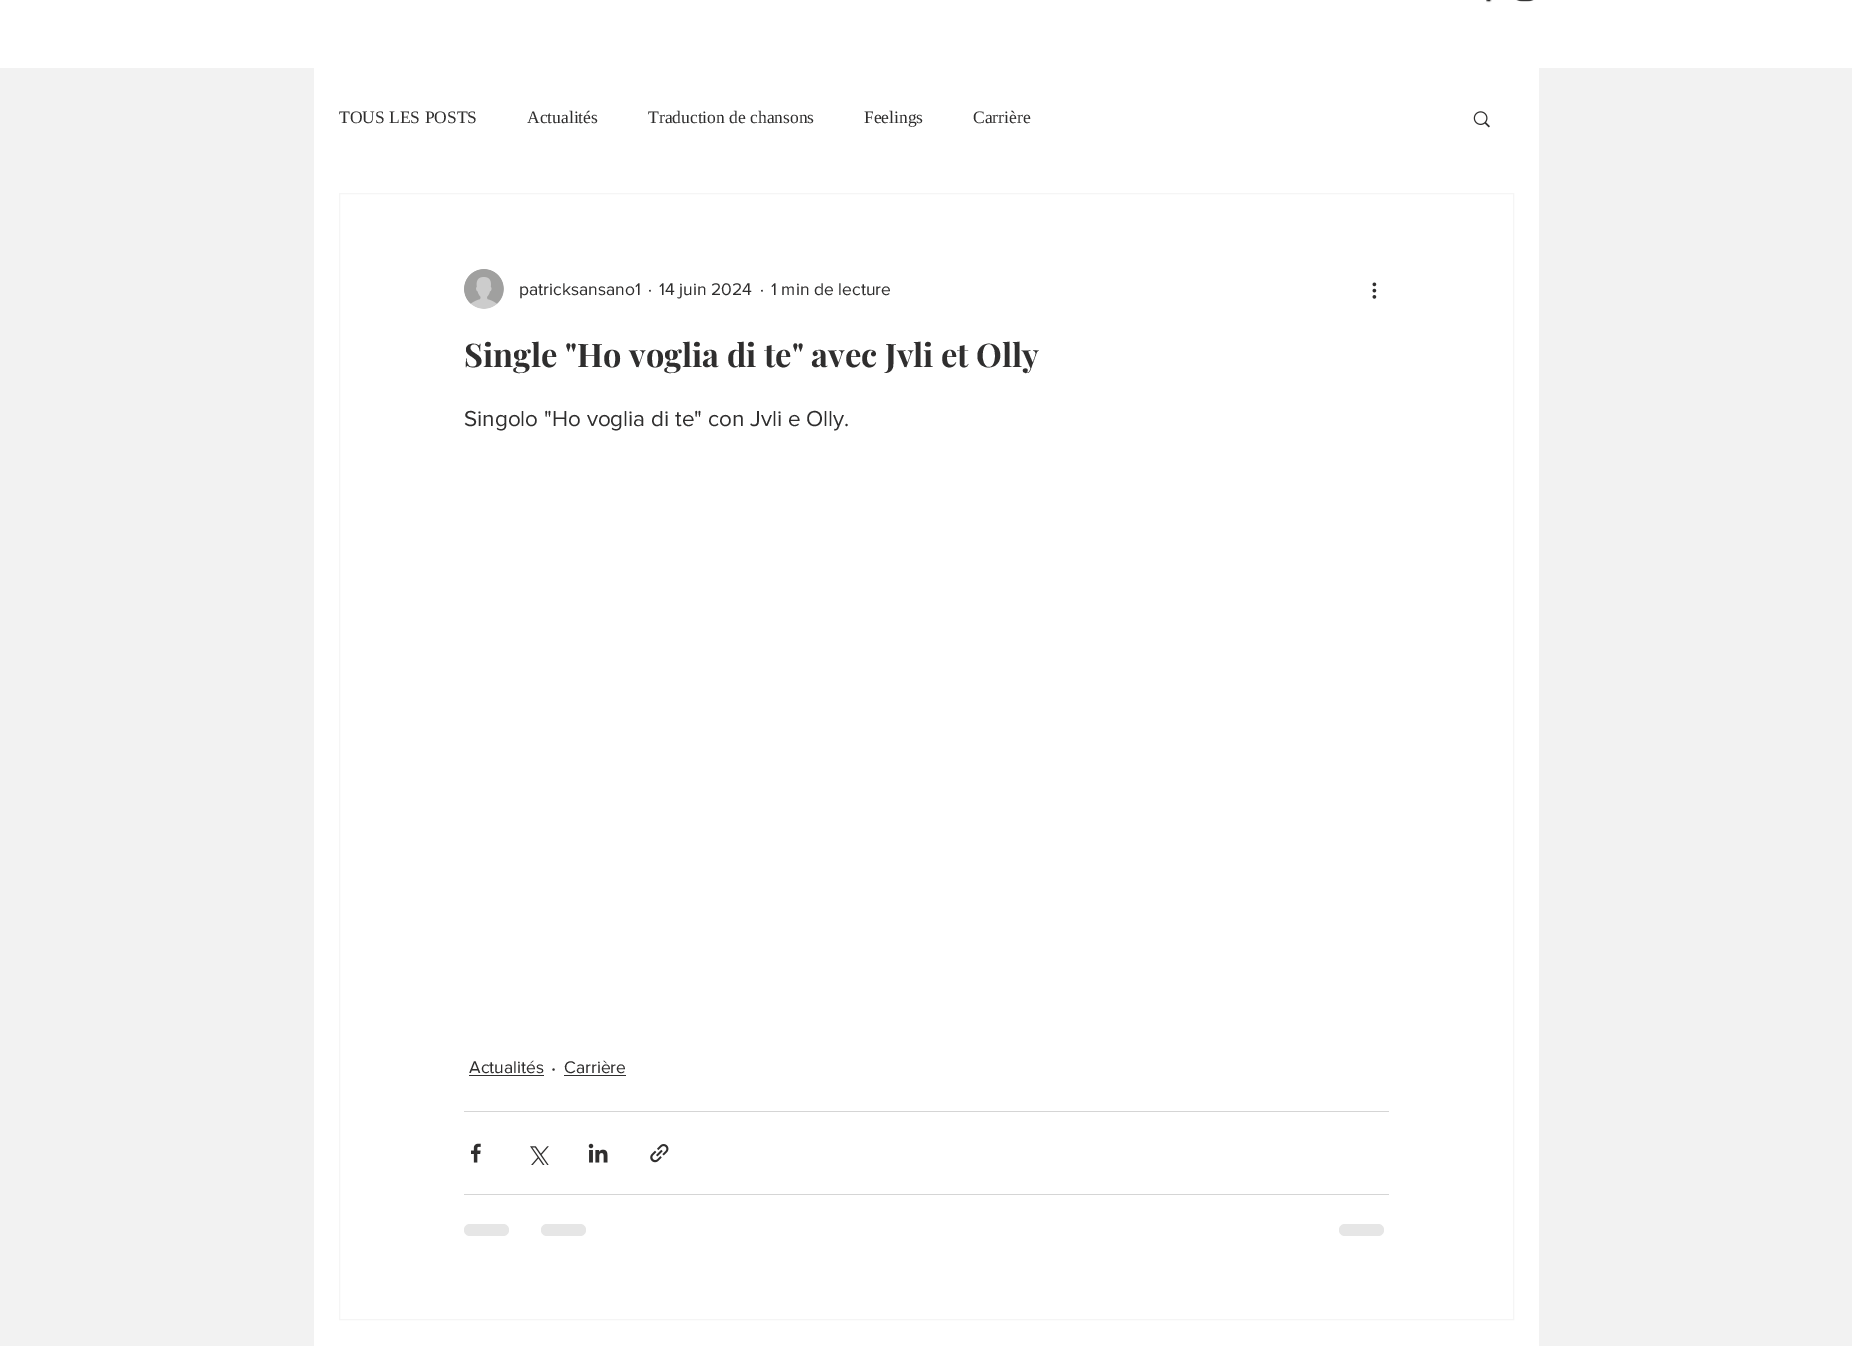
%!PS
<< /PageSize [1852 1346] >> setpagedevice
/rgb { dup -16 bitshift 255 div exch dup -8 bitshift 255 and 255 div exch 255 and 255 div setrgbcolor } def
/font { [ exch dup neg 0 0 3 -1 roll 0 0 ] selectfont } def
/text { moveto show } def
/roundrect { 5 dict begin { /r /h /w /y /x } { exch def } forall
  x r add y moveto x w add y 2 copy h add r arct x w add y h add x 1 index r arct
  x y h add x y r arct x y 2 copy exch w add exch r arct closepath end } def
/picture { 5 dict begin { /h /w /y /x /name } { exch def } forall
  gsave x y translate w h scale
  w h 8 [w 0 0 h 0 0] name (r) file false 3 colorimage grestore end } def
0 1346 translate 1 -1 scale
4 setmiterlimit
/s1 { /LiberationSerif-Regular 17.5 font 16#2F2E2E rgb } def
/s2 { /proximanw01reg-Regular 17.5 font 16#2F2E2E rgb } def
/s3 { /PlayfairDisplay-Bold 32.5 font 16#2F2E2E rgb } def
/s4 { /proximanw01reg-Regular 22.5 font 16#2F2E2E rgb } def
16#F2F2F2 rgb
0 0 1852 1346 rectfill
16#FFFFFF rgb
0 0 1852 68 rectfill
(pic1.raw) 1486 0 6 3 picture
(pic2.raw) 1516 0 18 2 picture
314 68 1225 1278 rectfill
s1
(TOUS LES POSTS) 339 123 text
(Actualités) 527 123 text
(Traduction de chansons) 648 123 text
(Feelings) 864 123 text
(Carrière) 973 123 text
(pic3.raw) 1473 111 17 17 picture
16#F5F5F5 rgb
339.5 193.5 1174 1126 rectstroke
(pic4.raw) 464 269 40 40 picture
s2
(patricksansano1) 519 295 text
(·) 648 295 text
(14 juin 2024) 659 295 text
(·) 760 295 text
(1 min de lecture) 771 295 text
(pic5.raw) 1372 282 5 17 picture
s3
(Single "Ho voglia di te" avec Jvli et Olly) 464 367 text
s4
(Singolo "Ho voglia di te" con Jvli e Olly.) 464 426 text
s2
(Actualités) 469 1073 text
469 1075 75 1 rectfill
s4
(·) 551 1075 text
s2
(Carrière) 564 1073 text
564 1075 62 1 rectfill
16#D5D5D5 rgb
464 1111 925 1 rectfill
(pic6.raw) 471 1143 10 20 picture
(pic7.raw) 530 1146 19 19 picture
(pic8.raw) 588 1143 20 20 picture
(pic9.raw) 650 1144 19 19 picture
464 1194 925 1 rectfill
16#E6E6E6 rgb
464 1224 45 12 6 roundrect fill
541 1224 45 12 6 roundrect fill
1339 1224 45 12 6 roundrect fill
showpage
